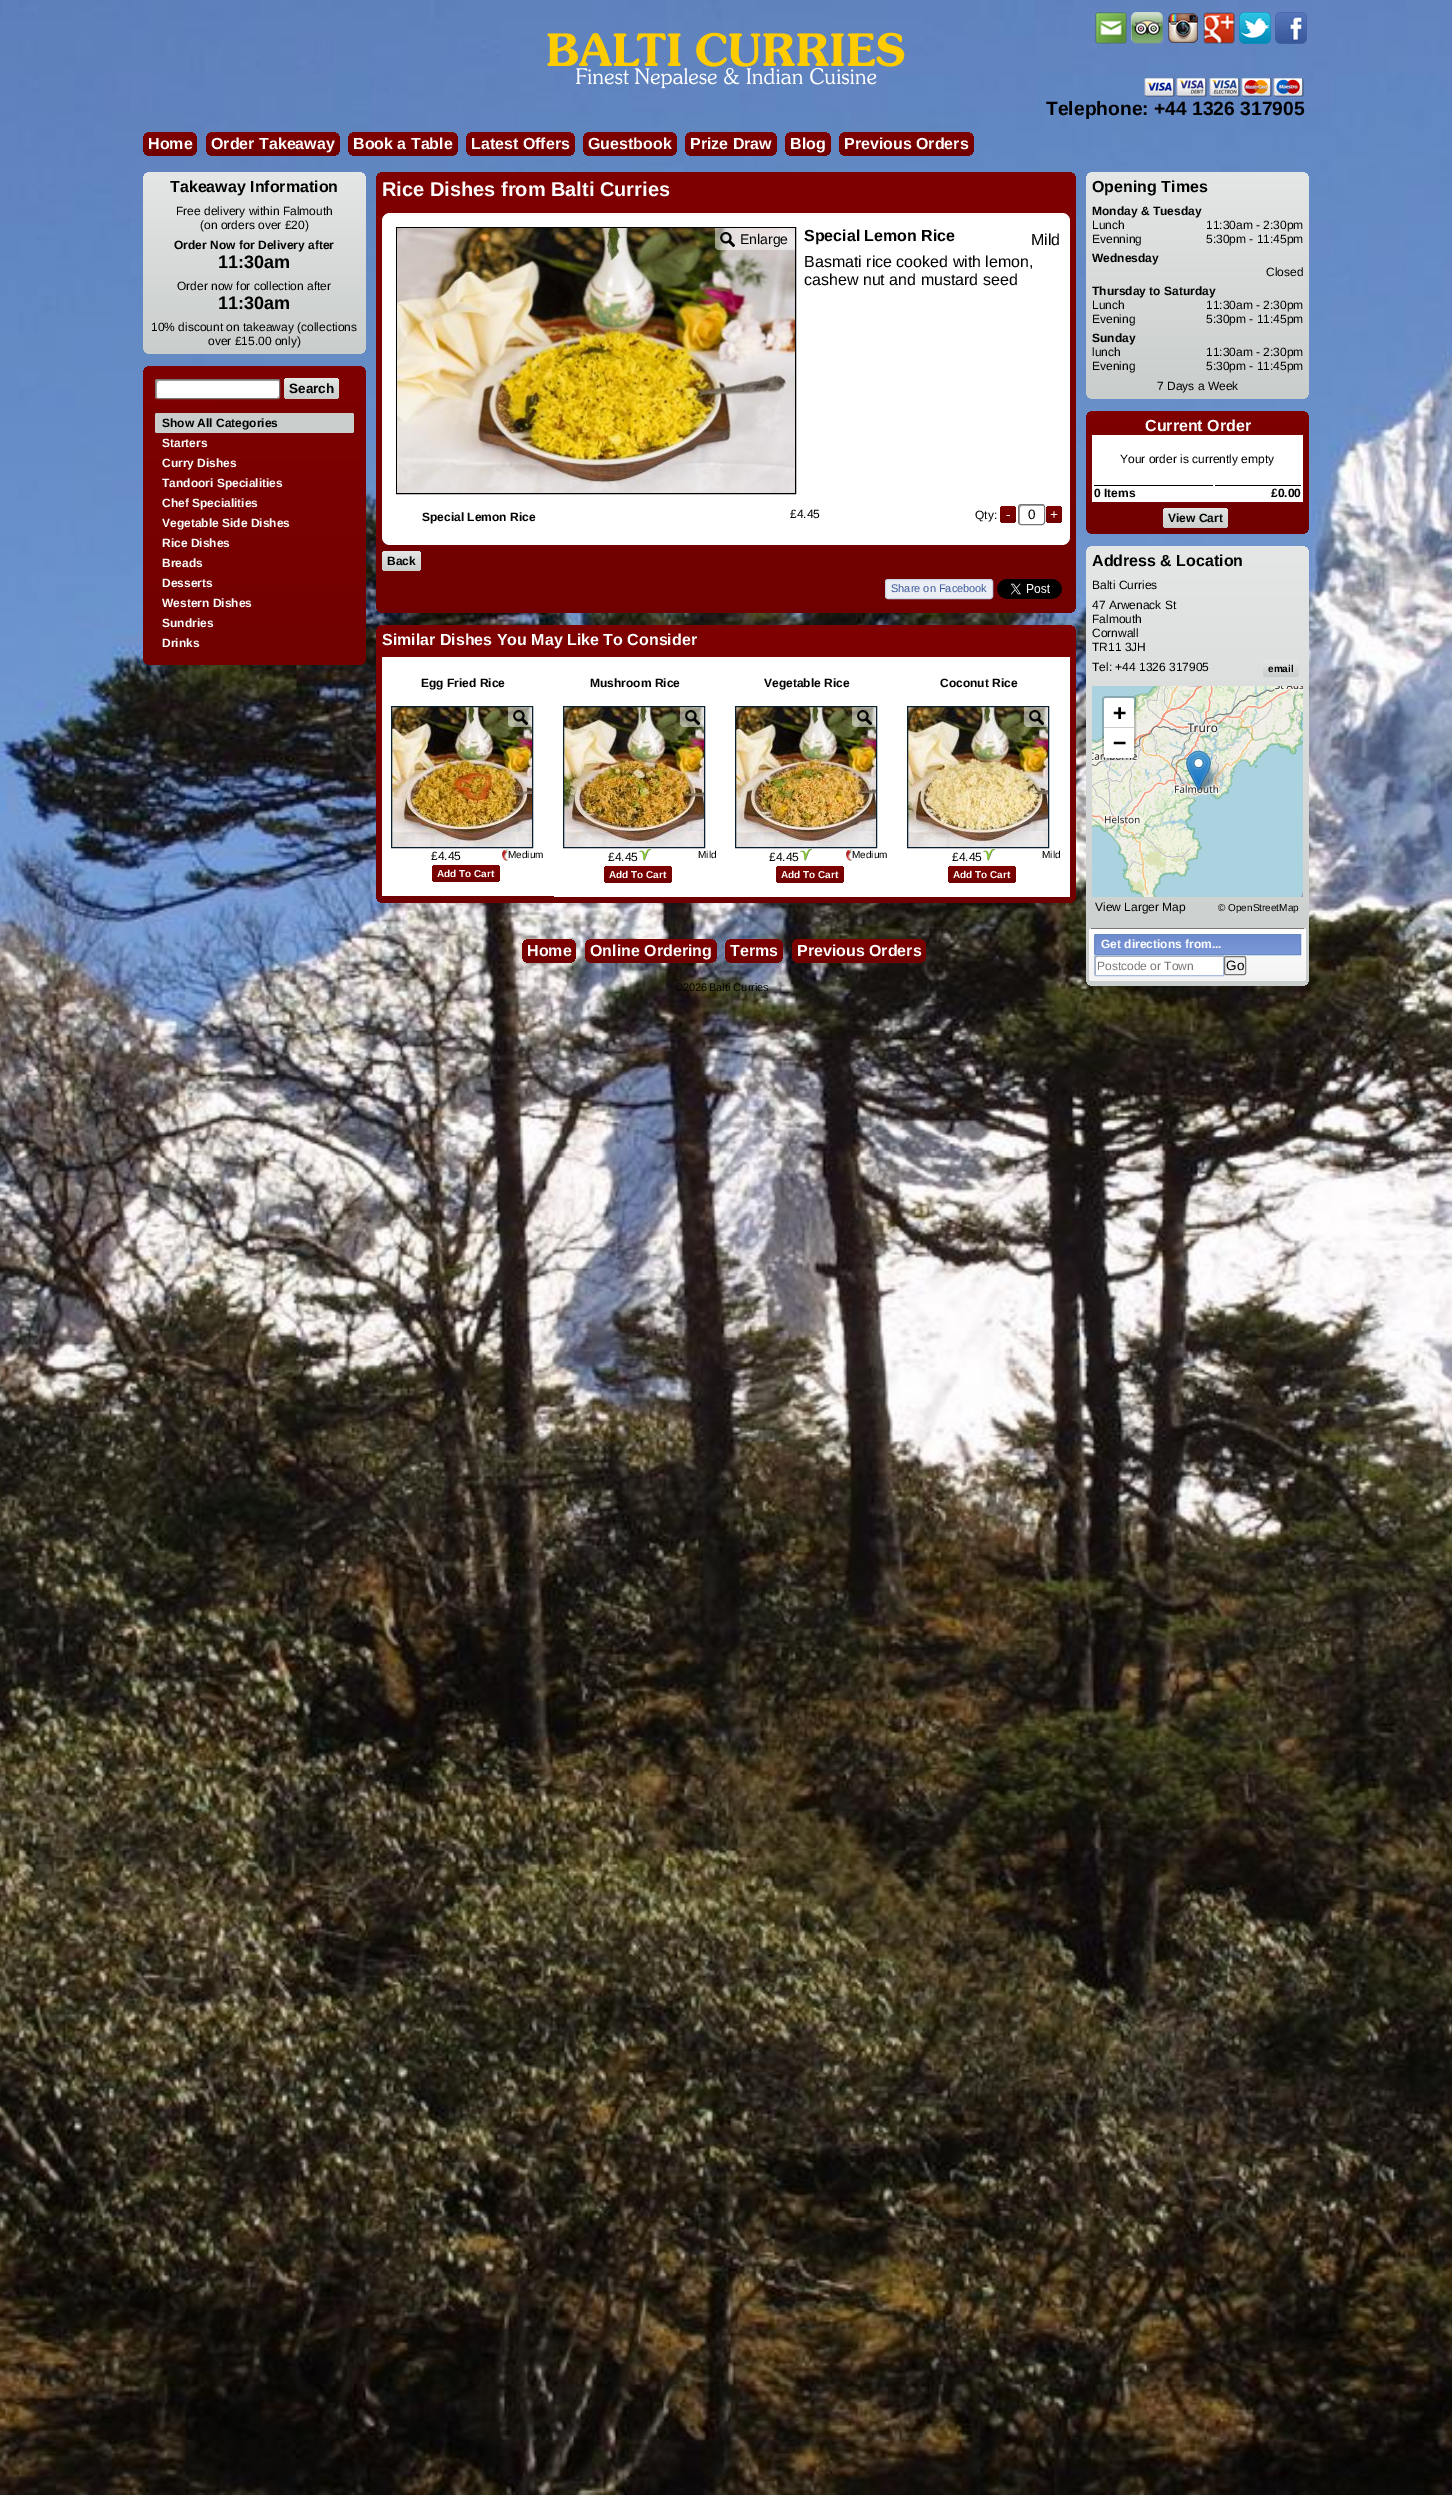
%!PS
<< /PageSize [1452 2495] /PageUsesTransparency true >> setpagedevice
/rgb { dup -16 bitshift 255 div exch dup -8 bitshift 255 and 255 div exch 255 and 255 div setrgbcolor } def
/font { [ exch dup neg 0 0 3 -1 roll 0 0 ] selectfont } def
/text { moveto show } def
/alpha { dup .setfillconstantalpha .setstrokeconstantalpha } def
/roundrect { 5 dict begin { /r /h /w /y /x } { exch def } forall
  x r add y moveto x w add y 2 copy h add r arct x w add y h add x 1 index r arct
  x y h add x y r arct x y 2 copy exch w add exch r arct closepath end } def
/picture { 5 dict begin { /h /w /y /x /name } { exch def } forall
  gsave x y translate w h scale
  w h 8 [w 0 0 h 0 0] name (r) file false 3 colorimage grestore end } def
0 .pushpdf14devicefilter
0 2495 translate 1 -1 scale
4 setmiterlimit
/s1 { /LiberationSans-Bold 19.25 font 16#000000 rgb } def
/s2 { /LiberationSans-Bold 16 font 16#FFFFFF rgb } def
/s3 { /LiberationSans-Bold 16 font 16#000000 rgb } def
/s4 { /LiberationSans-Regular 12 font 16#000000 rgb } def
/s5 { /LiberationSans-Bold 12 font 16#000000 rgb } def
/s6 { /LiberationSans-Bold 18 font 16#000000 rgb } def
/s7 { /LiberationSans-Bold 13.5 font 16#000000 rgb } def
/s8 { /LiberationSans-Bold 12 font 16#FFFFFF rgb } def
/s9 { /LiberationSans-Bold 10 font 16#000000 rgb } def
/s10 { /DejaVuSansMono-Bold 22 font 16#000000 rgb } def
/s11 { /LiberationSans-Regular 10 font 16#000000 rgb } def
/s12 { /LiberationSans-Regular 12 font 16#777777 rgb } def
/s13 { /LiberationSans-Regular 13.5 font 16#000000 rgb } def
/s14 { /LiberationSans-Bold 20 font 16#FFFFFF rgb } def
/s15 { /LiberationSans-Regular 16 font 16#000000 rgb } def
/s16 { /LiberationSans-Regular 14 font 16#000000 rgb } def
/s17 { /LiberationSans-Regular 13.5 font 16#FFFFFF rgb } def
/s18 { /LiberationSans-Regular 11 font 16#3B5998 rgb } def
/s19 { /LiberationSans-Bold 10 font 16#FFFFFF rgb } def
/s20 { /LiberationSans-Regular 11 font 16#000000 rgb } def
16#FFFFFF rgb
0 0 1452 2495 rectfill
(pic1.raw) 0 0 1452 2495 picture
(pic2.raw) 1095 12 32 32 picture
(pic3.raw) 1131 12 32 32 picture
(pic4.raw) 1168 13 30 30 picture
(pic5.raw) 1203 12 32 32 picture
(pic6.raw) 1239 12 32 32 picture
(pic7.raw) 1275 12 32 32 picture
(pic8.raw) 547 32 358 35 picture
(pic9.raw) 576 67 301 22 picture
(pic10.raw) 1144 78 160 19 picture
s1
(Telephone: +44 1326 317905) 1046 115 text
gsave 143 132 54 24 8 roundrect clip newpath
<< /ShadingType 2 /ColorSpace /DeviceRGB /Coords [170 132 170 156] /Extend [true true] /Function << /FunctionType 2 /Domain [0 1] /C0 [0.502 0 0] /C1 [0.439 0 0] /N 1 >> >> shfill grestore
s2
(Home) 148 149 text
gsave 206 132 134 24 8 roundrect clip newpath
<< /ShadingType 2 /ColorSpace /DeviceRGB /Coords [273 132 273 156] /Extend [true true] /Function << /FunctionType 2 /Domain [0 1] /C0 [0.502 0 0] /C1 [0.439 0 0] /N 1 >> >> shfill grestore
(Order Takeaway) 211 149 text
gsave 348 132 110 24 8 roundrect clip newpath
<< /ShadingType 2 /ColorSpace /DeviceRGB /Coords [403 132 403 156] /Extend [true true] /Function << /FunctionType 2 /Domain [0 1] /C0 [0.502 0 0] /C1 [0.439 0 0] /N 1 >> >> shfill grestore
(Book a Table) 353 149 text
gsave 466 132 109 24 8 roundrect clip newpath
<< /ShadingType 2 /ColorSpace /DeviceRGB /Coords [521 132 521 156] /Extend [true true] /Function << /FunctionType 2 /Domain [0 1] /C0 [0.502 0 0] /C1 [0.439 0 0] /N 1 >> >> shfill grestore
(Latest Offers) 471 149 text
gsave 583 132 94 24 8 roundrect clip newpath
<< /ShadingType 2 /ColorSpace /DeviceRGB /Coords [630 132 630 156] /Extend [true true] /Function << /FunctionType 2 /Domain [0 1] /C0 [0.502 0 0] /C1 [0.439 0 0] /N 1 >> >> shfill grestore
(Guestbook) 588 149 text
gsave 685 132 92 24 8 roundrect clip newpath
<< /ShadingType 2 /ColorSpace /DeviceRGB /Coords [731 132 731 156] /Extend [true true] /Function << /FunctionType 2 /Domain [0 1] /C0 [0.502 0 0] /C1 [0.439 0 0] /N 1 >> >> shfill grestore
(Prize Draw) 690 149 text
gsave 785 132 46 24 8 roundrect clip newpath
<< /ShadingType 2 /ColorSpace /DeviceRGB /Coords [808 132 808 156] /Extend [true true] /Function << /FunctionType 2 /Domain [0 1] /C0 [0.502 0 0] /C1 [0.439 0 0] /N 1 >> >> shfill grestore
(Blog) 790 149 text
gsave 839 132 135 24 8 roundrect clip newpath
<< /ShadingType 2 /ColorSpace /DeviceRGB /Coords [907 132 907 156] /Extend [true true] /Function << /FunctionType 2 /Domain [0 1] /C0 [0.502 0 0] /C1 [0.439 0 0] /N 1 >> >> shfill grestore
(Previous Orders) 844 149 text
gsave 143 172 223 182 8 roundrect clip newpath
<< /ShadingType 2 /ColorSpace /DeviceRGB /Coords [255 172 255 354] /Extend [true true] /Function << /FunctionType 2 /Domain [0 1] /C0 [0.894 0.906 0.902] /C1 [0.788 0.804 0.8] /N 1 >> >> shfill grestore
s3
(Takeaway Information) 170 192 text
s4
(Free delivery within Falmouth) 176 215 text
(\(on orders over £20\)) 200 229 text
s5
(Order Now for Delivery after) 174 249 text
s6
(11:30am) 218 268 text
s4
(Order now for collection after) 177 290 text
s6
(11:30am) 218 309 text
s4
(10% discount on takeaway \(collections) 151 331 text
(over £15.00 only\)) 208 345 text
gsave 143 366 223 299 8 roundrect clip newpath
<< /ShadingType 2 /ColorSpace /DeviceRGB /Coords [254 366 255 665] /Extend [true true] /Function << /FunctionType 2 /Domain [0 1] /C0 [0.502 0 0] /C1 [0.439 0 0] /N 1 >> >> shfill grestore
16#FFFFFF rgb
155 379 125 20 3 roundrect fill
16#AAAAAA rgb
159 381 moveto 279 381 lineto 277 380 lineto 158 380 lineto 157 380 156 381 156 382 curveto 156 385 155 397 157 398 curveto 157 390 lineto 157 388 156 381 159 381 curveto closepath fill
16#777777 rgb
155.5 379.5 124 19 2.5 roundrect stroke
gsave 284 378 55 21 4 roundrect clip newpath
<< /ShadingType 2 /ColorSpace /DeviceRGB /Coords [312 378 312 399] /Extend [true true] /Function << /FunctionType 2 /Domain [0 1] /C0 [0.894 0.906 0.902] /C1 [0.788 0.804 0.8] /N 1 >> >> shfill grestore
s7
(Search) 289 393 text
16#C9CDCC rgb
155 413 199 20 2 roundrect fill
s5
(Show All Categories) 162 427 text
s8
(Starters) 162 447 text
(Curry Dishes) 162 467 text
(Tandoori Specialities) 162 487 text
(Chef Specialities) 162 507 text
(Vegetable Side Dishes) 162 527 text
(Rice Dishes) 162 547 text
(Breads) 162 567 text
(Desserts) 162 587 text
(Western Dishes) 162 607 text
(Sundries) 162 627 text
(Drinks) 162 647 text
gsave 1086 172 223 227 8 roundrect clip newpath
<< /ShadingType 2 /ColorSpace /DeviceRGB /Coords [1198 172 1198 399] /Extend [true true] /Function << /FunctionType 2 /Domain [0 1] /C0 [0.894 0.906 0.902] /C1 [0.788 0.804 0.8] /N 1 >> >> shfill grestore
s3
(Opening Times) 1092 192 text
s5
(Monday & Tuesday) 1092 215 text
s4
(Lunch) 1092 229 text
(11:30am - 2:30pm) 1206 229 text
(Evenning) 1092 243 text
(5:30pm - 11:45pm) 1206 243 text
s5
(Wednesday) 1092 262 text
s4
(Closed) 1266 276 text
s5
(Thursday to Saturday) 1092 295 text
s4
(Lunch) 1092 309 text
(11:30am - 2:30pm) 1206 309 text
(Evening) 1092 323 text
(5:30pm - 11:45pm) 1206 323 text
s5
(Sunday) 1092 342 text
s4
(lunch) 1092 356 text
(11:30am - 2:30pm) 1206 356 text
(Evening) 1092 370 text
(5:30pm - 11:45pm) 1206 370 text
(7 Days a Week) 1157 390 text
gsave 1086 411 223 123 8 roundrect clip newpath
<< /ShadingType 2 /ColorSpace /DeviceRGB /Coords [1198 411 1198 534] /Extend [true true] /Function << /FunctionType 2 /Domain [0 1] /C0 [0.502 0 0] /C1 [0.439 0 0] /N 1 >> >> shfill grestore
s2
(Current Order) 1145 431 text
1092 435 211 67 rectfill
s4
(Your order is currently empty) 1120 463 text
1094 485 119 1 rectfill
s5
(0 Items) 1094 497 text
1215 485 86 1 rectfill
(£0.00) 1271 497 text
gsave 1163 508 65 20 4 roundrect clip newpath
<< /ShadingType 2 /ColorSpace /DeviceRGB /Coords [1196 508 1196 528] /Extend [true true] /Function << /FunctionType 2 /Domain [0 1] /C0 [0.894 0.906 0.902] /C1 [0.788 0.804 0.8] /N 1 >> >> shfill grestore
(View Cart) 1168 522 text
gsave 1086 546 223 440 8 roundrect clip newpath
<< /ShadingType 2 /ColorSpace /DeviceRGB /Coords [1198 546 1198 986] /Extend [true true] /Function << /FunctionType 2 /Domain [0 1] /C0 [0.894 0.906 0.902] /C1 [0.788 0.804 0.8] /N 1 >> >> shfill grestore
s3
(Address & Location) 1092 566 text
s4
(Balti Curries) 1092 589 text
(47 Arwenack St) 1092 609 text
(Falmouth) 1092 623 text
(Cornwall) 1092 637 text
(TR11 3JH) 1092 651 text
(Tel: +44 1326 317905) 1092 671 text
gsave 1263 660 36 17 4 roundrect clip newpath
<< /ShadingType 2 /ColorSpace /DeviceRGB /Coords [1281 660 1281 677] /Extend [true true] /Function << /FunctionType 2 /Domain [0 1] /C0 [0.894 0.906 0.902] /C1 [0.788 0.804 0.8] /N 1 >> >> shfill grestore
s9
(email) 1268 672 text
(pic11.raw) 1092 686 158 27 picture
(pic12.raw) 1250 686 53 27 picture
(pic13.raw) 1092 713 158 184 picture
(pic14.raw) 1250 713 53 184 picture
(pic16.raw) 1196 763 29 28 picture
(pic15.raw) 1186 750 25 41 picture
0.2 alpha
2 setlinewidth
1103 697 32 62 3 roundrect stroke
1 alpha
16#FFFFFF rgb
1106 698 moveto 1132 698 lineto 1133 698 1134 699 1134 700 curveto 1134 728 lineto 1104 728 lineto 1104 700 lineto 1104 699 1105 698 1106 698 curveto closepath fill
16#CCCCCC rgb
1104 727 30 1 rectfill
s10
(+) 1113 720 text
16#FFFFFF rgb
1104 728 moveto 1134 728 lineto 1134 756 lineto 1134 757 1133 758 1132 758 curveto 1106 758 lineto 1105 758 1104 757 1104 756 curveto closepath fill
s10
(−) 1113 750 text
s4
(View Larger Map) 1095 911 text
s11
(© OpenStreetMap) 1218 911 text
16#FEFEFE rgb
1089 928 217 53 4 roundrect fill
gsave
1089 928 217 53 4 roundrect clip newpath
gsave 1089 929 moveto 1306 929 lineto 1306 977 lineto 1306 979 1304 981 1302 981 curveto 1093 981 lineto 1091 981 1089 979 1089 977 curveto closepath clip newpath
<< /ShadingType 2 /ColorSpace /DeviceRGB /Coords [1089 929 1089 981] /Extend [true true] /Function << /FunctionType 2 /Domain [0 1] /C0 [0.996 0.996 0.996] /C1 [0.953 0.953 0.953] /N 1 >> >> shfill grestore
grestore
16#777777 rgb
1091 928 213 1 rectfill
gsave 1094 935 moveto 1300 935 lineto 1300 954 lineto 1094 954 lineto closepath clip newpath
<< /ShadingType 2 /ColorSpace /DeviceRGB /Coords [1095 935 1095 954] /Extend [true true] /Function << /FunctionType 2 /Domain [0 1] /C0 [0.427 0.541 0.8] /C1 [0.482 0.596 0.851] /N 1 >> >> shfill grestore
16#678AC7 rgb
1 setlinewidth
1096 934.5 moveto 1300.5 934.5 lineto 1300.5 954.5 lineto 1096 954.5 lineto 1095 954.5 1094.5 954 1094.5 953 curveto 1094.5 936 lineto 1094.5 935 1095 934.5 1096 934.5 curveto closepath stroke
s8
(Get directions from...) 1101 948 text
1096 955 moveto 1224 955 lineto 1224 976 lineto 1096 976 lineto 1095 976 1094 975 1094 974 curveto 1094 957 lineto 1094 956 1095 955 1096 955 curveto closepath fill
16#AAAAAA rgb
1097 957 moveto 1223 957 lineto 1223 956 lineto 1096 956 lineto 1095 956 1095 956 1095 957 curveto 1095 974 lineto 1095 975 1095 975 1096 975 curveto 1096 958 lineto closepath fill
16#A9BBDF rgb
1096 955.5 moveto 1223.5 955.5 lineto 1223.5 975.5 lineto 1096 975.5 lineto 1095 975.5 1094.5 975 1094.5 974 curveto 1094.5 957 lineto 1094.5 956 1095 955.5 1096 955.5 curveto closepath stroke
s12
(Postcode or Town) 1097 970 text
16#EFEFEF rgb
1224.5 956.5 21 18 1.5 roundrect gsave fill grestore
16#767676 rgb
stroke
s13
(Go) 1226 970 text
gsave 376 172 700 441 8 roundrect clip newpath
<< /ShadingType 2 /ColorSpace /DeviceRGB /Coords [726 172 726 613] /Extend [true true] /Function << /FunctionType 2 /Domain [0 1] /C0 [0.502 0 0] /C1 [0.439 0 0] /N 1 >> >> shfill grestore
s14
(Rice Dishes from Balti Curries) 382 196 text
382 213 688 332 8 roundrect fill
16#000000 rgb
396.5 227.5 399 266 rectstroke
(pic17.raw) 397 228 398 265 picture
s3
(Special Lemon Rice) 804 241 text
s15
(Mild) 1031 245 text
(Basmati rice cooked with lemon,) 804 267 text
(cashew nut and mustard seed) 804 285 text
0.5 alpha
16#FFFFFF rgb
715 228 moveto 795 228 lineto 795 250 lineto 719 250 lineto 717 250 715 248 715 246 curveto closepath fill
1 alpha
(pic18.raw) 720 232 15 15 picture
s16
(Enlarge) 740 244 text
s5
(Special Lemon Rice) 422 521 text
s4
(£4.45) 790 518 text
(Qty:) 975 519 text
gsave 1000 506 16 17 4 roundrect clip newpath
<< /ShadingType 2 /ColorSpace /DeviceRGB /Coords [1008 506 1008 523] /Extend [true true] /Function << /FunctionType 2 /Domain [0 1] /C0 [0.502 0 0] /C1 [0.439 0 0] /N 1 >> >> shfill grestore
s17
(-) 1006 519 text
16#AAAAAA rgb
1022 506 moveto 1043 506 lineto 1044 506 lineto 1043.5 505.5 1043 505 1042 505 curveto 1021 505 lineto 1020 505 1019 506 1019 507 curveto 1019 522 lineto 1019 523 1019.5 523.5 1020 524 curveto 1020 523 lineto 1020 508 lineto 1020 507 1021 506 1022 506 curveto closepath fill
16#777777 rgb
1018.5 504.5 26 20 2.5 roundrect stroke
s13
(0) 1028 519 text
gsave 1046 506 16 17 4 roundrect clip newpath
<< /ShadingType 2 /ColorSpace /DeviceRGB /Coords [1054 506 1054 523] /Extend [true true] /Function << /FunctionType 2 /Domain [0 1] /C0 [0.502 0 0] /C1 [0.439 0 0] /N 1 >> >> shfill grestore
s17
(+) 1050 519 text
gsave 382 551 39 20 4 roundrect clip newpath
<< /ShadingType 2 /ColorSpace /DeviceRGB /Coords [402 551 402 571] /Extend [true true] /Function << /FunctionType 2 /Domain [0 1] /C0 [0.894 0.906 0.902] /C1 [0.788 0.804 0.8] /N 1 >> >> shfill grestore
s5
(Back) 387 565 text
16#ECEEF5 rgb
885.5 579.5 107 19 2.5 roundrect gsave fill grestore
16#CAD4E7 rgb
stroke
s18
(Share on Facebook) 891 592 text
(pic19.raw) 997 579 65 20 picture
gsave 376 625 700 278 8 roundrect clip newpath
<< /ShadingType 2 /ColorSpace /DeviceRGB /Coords [726 625 726 903] /Extend [true true] /Function << /FunctionType 2 /Domain [0 1] /C0 [0.502 0 0] /C1 [0.439 0 0] /N 1 >> >> shfill grestore
s2
(Similar Dishes You May Like To Consider) 382 645 text
382 657 172 239 rectfill
s5
(Egg Fried Rice) 421 687 text
(pic20.raw) 392 707 140 140 picture
16#081F2F rgb
391.5 706.5 141 141 rectstroke
0.5 alpha
16#FFFFFF rgb
508 707 moveto 532 707 lineto 532 727 lineto 512 727 lineto 510 727 508 725 508 723 curveto closepath fill
1 alpha
(pic21.raw) 513 710 15 15 picture
s4
(£4.45) 431 860 text
(pic22.raw) 502 849 6 12 picture
s11
(Medium) 508 858 text
gsave 432 865 68 17 4 roundrect clip newpath
<< /ShadingType 2 /ColorSpace /DeviceRGB /Coords [466 865 466 882] /Extend [true true] /Function << /FunctionType 2 /Domain [0 1] /C0 [0.502 0 0] /C1 [0.439 0 0] /N 1 >> >> shfill grestore
s19
(Add To Cart) 437 877 text
554 657 516 240 rectfill
s5
(Mushroom Rice) 590 687 text
(pic23.raw) 564 707 140 140 picture
16#081F2F rgb
563.5 706.5 141 141 rectstroke
0.5 alpha
16#FFFFFF rgb
680 707 moveto 704 707 lineto 704 727 lineto 684 727 lineto 682 727 680 725 680 723 curveto closepath fill
1 alpha
(pic24.raw) 685 710 15 15 picture
s4
(£4.45) 608 861 text
(pic25.raw) 638 849 13 12 picture
s11
(Mild) 698 858 text
gsave 604 866 68 17 4 roundrect clip newpath
<< /ShadingType 2 /ColorSpace /DeviceRGB /Coords [638 866 638 883] /Extend [true true] /Function << /FunctionType 2 /Domain [0 1] /C0 [0.502 0 0] /C1 [0.439 0 0] /N 1 >> >> shfill grestore
s19
(Add To Cart) 609 878 text
s5
(Vegetable Rice) 764 687 text
(pic26.raw) 736 707 140 140 picture
16#081F2F rgb
735.5 706.5 141 141 rectstroke
0.5 alpha
16#FFFFFF rgb
852 707 moveto 876 707 lineto 876 727 lineto 856 727 lineto 854 727 852 725 852 723 curveto closepath fill
1 alpha
(pic27.raw) 857 710 15 15 picture
s4
(£4.45) 769 861 text
(pic25.raw) 799 849 13 12 picture
(pic22.raw) 846 849 6 12 picture
s11
(Medium) 852 858 text
gsave 776 866 68 17 4 roundrect clip newpath
<< /ShadingType 2 /ColorSpace /DeviceRGB /Coords [810 866 810 883] /Extend [true true] /Function << /FunctionType 2 /Domain [0 1] /C0 [0.502 0 0] /C1 [0.439 0 0] /N 1 >> >> shfill grestore
s19
(Add To Cart) 781 878 text
s5
(Coconut Rice) 940 687 text
(pic28.raw) 908 707 140 140 picture
16#081F2F rgb
907.5 706.5 141 141 rectstroke
0.5 alpha
16#FFFFFF rgb
1024 707 moveto 1048 707 lineto 1048 727 lineto 1028 727 lineto 1026 727 1024 725 1024 723 curveto closepath fill
1 alpha
(pic29.raw) 1029 710 15 15 picture
s4
(£4.45) 952 861 text
(pic25.raw) 982 849 13 12 picture
s11
(Mild) 1042 858 text
gsave 948 866 68 17 4 roundrect clip newpath
<< /ShadingType 2 /ColorSpace /DeviceRGB /Coords [982 866 982 883] /Extend [true true] /Function << /FunctionType 2 /Domain [0 1] /C0 [0.502 0 0] /C1 [0.439 0 0] /N 1 >> >> shfill grestore
s19
(Add To Cart) 953 878 text
gsave 522 939 54 24 8 roundrect clip newpath
<< /ShadingType 2 /ColorSpace /DeviceRGB /Coords [549 939 549 963] /Extend [true true] /Function << /FunctionType 2 /Domain [0 1] /C0 [0.502 0 0] /C1 [0.439 0 0] /N 1 >> >> shfill grestore
s2
(Home) 527 956 text
gsave 585 939 132 24 8 roundrect clip newpath
<< /ShadingType 2 /ColorSpace /DeviceRGB /Coords [651 939 651 963] /Extend [true true] /Function << /FunctionType 2 /Domain [0 1] /C0 [0.502 0 0] /C1 [0.439 0 0] /N 1 >> >> shfill grestore
(Online Ordering) 590 956 text
gsave 725 939 58 24 8 roundrect clip newpath
<< /ShadingType 2 /ColorSpace /DeviceRGB /Coords [754 939 754 963] /Extend [true true] /Function << /FunctionType 2 /Domain [0 1] /C0 [0.502 0 0] /C1 [0.439 0 0] /N 1 >> >> shfill grestore
(Terms) 730 956 text
gsave 792 939 134 24 8 roundrect clip newpath
<< /ShadingType 2 /ColorSpace /DeviceRGB /Coords [859 939 859 963] /Extend [true true] /Function << /FunctionType 2 /Domain [0 1] /C0 [0.502 0 0] /C1 [0.439 0 0] /N 1 >> >> shfill grestore
(Previous Orders) 797 956 text
s20
(©2026) 675 991 text
(Balti Curries) 709 991 text
.poppdf14devicefilter showpage
